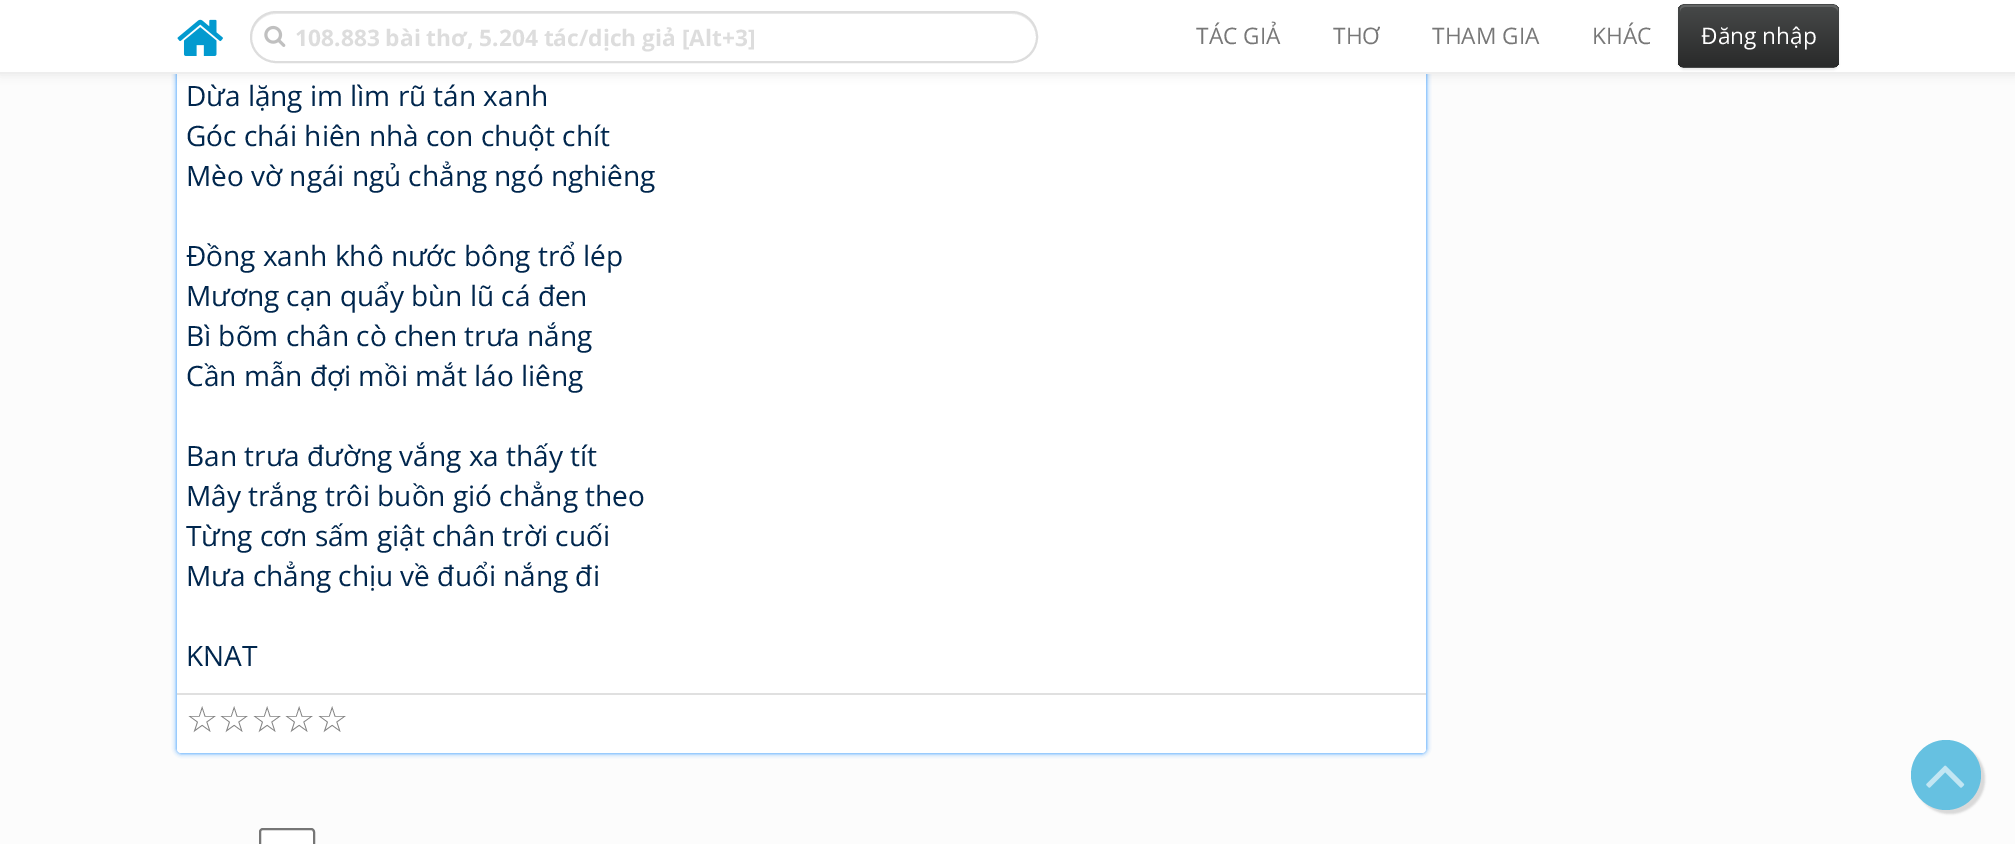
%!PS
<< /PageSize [2015 844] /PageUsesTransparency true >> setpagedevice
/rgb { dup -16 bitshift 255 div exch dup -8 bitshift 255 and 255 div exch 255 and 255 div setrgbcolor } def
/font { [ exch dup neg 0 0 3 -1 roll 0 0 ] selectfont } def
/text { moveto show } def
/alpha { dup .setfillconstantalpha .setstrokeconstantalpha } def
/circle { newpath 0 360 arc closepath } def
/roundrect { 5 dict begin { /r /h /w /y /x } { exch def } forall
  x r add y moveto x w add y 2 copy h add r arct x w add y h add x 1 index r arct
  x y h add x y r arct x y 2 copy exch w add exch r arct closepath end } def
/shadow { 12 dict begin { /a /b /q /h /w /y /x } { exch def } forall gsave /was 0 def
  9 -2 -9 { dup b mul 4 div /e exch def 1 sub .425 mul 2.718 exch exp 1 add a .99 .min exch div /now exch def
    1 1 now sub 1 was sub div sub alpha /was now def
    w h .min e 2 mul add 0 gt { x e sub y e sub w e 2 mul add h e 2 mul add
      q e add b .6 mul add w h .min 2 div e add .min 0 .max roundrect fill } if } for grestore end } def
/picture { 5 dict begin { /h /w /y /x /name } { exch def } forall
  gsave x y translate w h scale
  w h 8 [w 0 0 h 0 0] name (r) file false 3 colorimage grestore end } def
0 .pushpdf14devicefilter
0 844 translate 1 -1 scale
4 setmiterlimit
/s1 { /OpenSans-Bold 22.75 font 16#DDDDDD rgb } def
/s2 { /OpenSans-Regular 22.75 font 16#777777 rgb } def
/s3 { /OpenSans-Regular 22.75 font 16#FFFFFF rgb } def
/s4 { /OpenSans-Regular 28 font 16#00264D rgb } def
/s5 { /DejaVuSans-Regular 36 font 16#808080 rgb } def
16#FCFCFC rgb
0 0 2015 844 rectfill
16#1A8CFF rgb
177 -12 1249 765 4 2.5 1 shadow
16#FFFFFF rgb
177 -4 1249 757 4 roundrect fill
16#000000 rgb
0 2 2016 73 0 4.5 0.07 shadow
16#FFFFFF rgb
0 0 2015 72 rectfill
16#EEEEEE rgb
0 72 2015 2 rectfill
(pic1.raw) 177 19 46 37 picture
16#ECECEC rgb
276 14 moveto 1012 14 lineto 1025 14 1036 25 1036 37 curveto 1036 29 1032 21 1025 16 curveto 1021 13 1016 12 1012 12 curveto 276 12 lineto 263 12 252 24 252 37 curveto 252 25 263 14 276 14 curveto closepath fill
16#DDDDDD rgb
2 setlinewidth
251 12 786 50 25 roundrect stroke
(pic2.raw) 264 25 22 22 picture
s1
(108.883 bài thơ, 5.204 tác/dịch giả [Alt+3]) 295 46 text
s2
(TÁC GIẢ) 1196 44 text
(THƠ) 1333 44 text
(THAM GIA) 1432 44 text
(KHÁC) 1592 44 text
16#000000 rgb
1678 5 161 65 7 1 0.07 shadow
16#474949 rgb
1678 4 161 64 7 roundrect fill
gsave
1678 4 161 64 7 roundrect clip newpath
gsave 1678 5 moveto 1839 5 lineto 1839 67 lineto 1678 67 lineto closepath clip newpath
<< /ShadingType 2 /ColorSpace /DeviceRGB /Coords [1759 5.2 1759 67] /Extend [true true] /Function << /FunctionType 2 /Domain [0 1] /C0 [0.278 0.286 0.286] /C1 [0.161 0.165 0.165] /N 1 >> >> shfill grestore
grestore
16#626464 rgb
1685 7 moveto 1832 7 lineto 1835 7 1838 9 1838 12 curveto 1838 10 lineto 1838 7 1836 5 1833 5 curveto 1685 5 lineto 1682 5 1680 7 1680 10 curveto 1680 12 lineto 1680 9 1682 7 1685 7 curveto closepath fill
s3
(Đăng nhập) 1701 44 text
16#D8D8D8 rgb
1915 744 70 70 35 1 1 shadow
16#66C1E1 rgb
1946 775 35 circle fill
(pic3.raw) 1926 765 39 23 picture
s4
(Dừa lặng im lìm rũ tán xanh) 186 106 text
(Góc chái hiên nhà con chuột chít) 186 146 text
(Mèo vờ ngái ngủ chẳng ngó nghiêng) 186 186 text
(Đồng xanh khô nước bông trổ lép) 186 266 text
(Mương cạn quẩy bùn lũ cá đen) 186 306 text
(Bì bõm chân cò chen trưa nắng) 186 346 text
(Cần mẫn đợi mồi mắt láo liêng) 186 386 text
(Ban trưa đường vắng xa thấy tít) 186 466 text
(Mây trắng trôi buồn gió chẳng theo) 186 506 text
(Từng cơn sấm giật chân trời cuối) 186 546 text
(Mưa chẳng chịu về đuổi nắng đi) 186 586 text
(KNAT) 186 666 text
16#E0E0E0 rgb
177 693 1249 2 rectfill
s5
(☆) 186 732 text
(☆) 218 732 text
(☆) 251 732 text
(☆) 283 732 text
(☆) 316 732 text
16#FFFFFF rgb
260 829 54 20 3 roundrect gsave fill grestore
16#767676 rgb
stroke
.poppdf14devicefilter showpage
